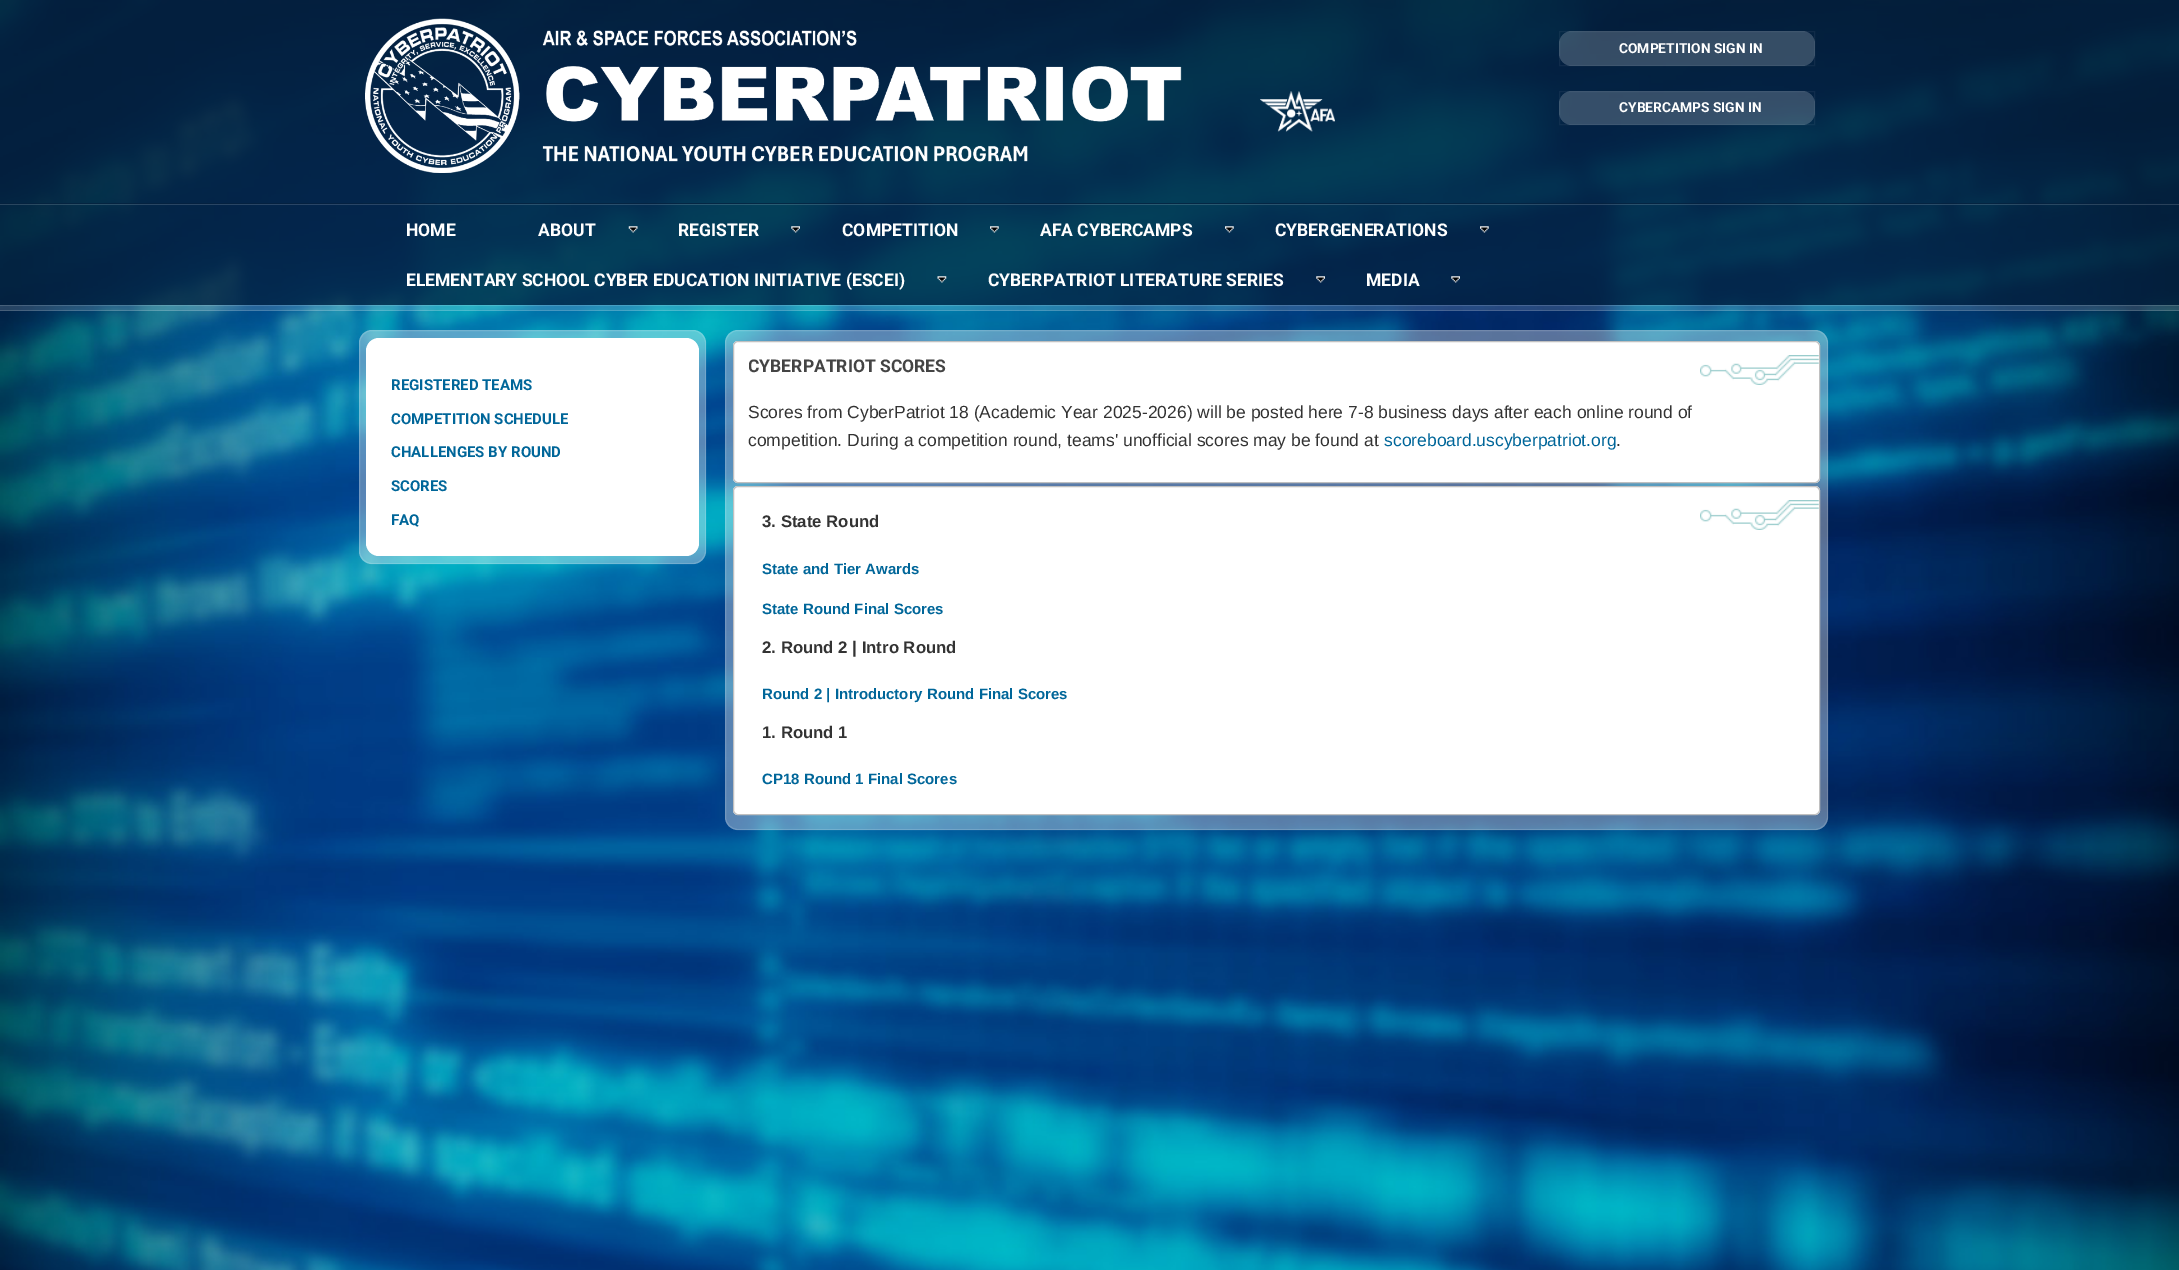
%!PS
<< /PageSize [2179 1270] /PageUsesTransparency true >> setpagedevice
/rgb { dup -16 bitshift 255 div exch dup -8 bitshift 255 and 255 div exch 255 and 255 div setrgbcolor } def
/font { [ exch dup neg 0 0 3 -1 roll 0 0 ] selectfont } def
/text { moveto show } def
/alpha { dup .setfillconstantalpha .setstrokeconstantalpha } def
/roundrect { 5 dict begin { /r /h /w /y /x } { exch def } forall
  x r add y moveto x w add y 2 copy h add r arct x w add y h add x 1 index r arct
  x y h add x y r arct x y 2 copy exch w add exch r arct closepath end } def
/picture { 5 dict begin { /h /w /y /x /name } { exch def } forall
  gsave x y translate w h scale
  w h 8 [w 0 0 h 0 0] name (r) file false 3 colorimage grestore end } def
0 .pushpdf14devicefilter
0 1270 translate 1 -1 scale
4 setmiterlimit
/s1 { /Roboto-Bold 13.75 font 16#FFFFFF rgb } def
/s2 { /Roboto-Bold 17.5 font 16#FFFFFF rgb } def
/s3 { /Roboto-Bold 15 font 16#006699 rgb } def
/s4 { /Roboto-Bold 17.5 font 16#444444 rgb } def
/s5 { /LiberationSans-Regular 17.5 font 16#333333 rgb } def
/s6 { /LiberationSans-Regular 17.5 font 16#006699 rgb } def
/s7 { /LiberationSans-Bold 16.75 font 16#333333 rgb } def
/s8 { /LiberationSans-Bold 15 font 16#006699 rgb } def
16#FFFFFF rgb
0 0 2179 1270 rectfill
(pic1.raw) 0 0 2179 1270 picture
0.75 alpha
16#04203D rgb
0 0 2179 204 rectfill
1 alpha
(pic2.raw) 365 18 817 155 picture
(pic3.raw) 1260 91 75 41 picture
0.2 alpha
16#FFFFFF rgb
1559 31 256 35 13 roundrect fill
0.05 alpha
1559.5 31.5 255 34 rectstroke
1 alpha
s1
(COMPETITION SIGN IN) 1619 53 text
0.2 alpha
1559 91 256 34 13 roundrect fill
0.05 alpha
1559.5 91.5 255 33 rectstroke
1 alpha
(CYBERCAMPS SIGN IN) 1619 112 text
0.75 alpha
16#04203D rgb
0 203 2179 102 rectfill
0.15 alpha
16#FFFFFF rgb
0 204 2179 1 rectfill
1 alpha
s2
(HOME) 406 236 text
(pic4.raw) 628 226 10 7 picture
(ABOUT) 538 236 text
(pic5.raw) 791 226 9 7 picture
(REGISTER) 678 236 text
(pic6.raw) 990 226 9 7 picture
(COMPETITION) 842 236 text
(pic7.raw) 1225 226 9 7 picture
(AFA CYBERCAMPS) 1040 236 text
(pic8.raw) 1480 226 9 7 picture
(CYBERGENERATIONS) 1275 236 text
(pic9.raw) 937 276 10 7 picture
(ELEMENTARY SCHOOL CYBER EDUCATION INITIATIVE \(ESCEI\)) 406 286 text
(pic10.raw) 1316 276 9 7 picture
(CYBERPATRIOT LITERATURE SERIES) 988 286 text
(pic11.raw) 1451 276 9 7 picture
(MEDIA) 1366 286 text
0.15 alpha
0 305 2179 6 rectfill
0 305 2179 1 rectfill
0 310 2179 1 rectfill
0.35 alpha
359 330 347 234 13 roundrect fill
0.15 alpha
359.5 330.5 346 233 12.5 roundrect stroke
1 alpha
366 338 333 218 13 roundrect fill
s3
(REGISTERED TEAMS) 391 390 text
(COMPETITION SCHEDULE) 391 424 text
(CHALLENGES BY ROUND) 391 457 text
(SCORES) 391 491 text
(FAQ) 391 525 text
0.35 alpha
16#FFFFFF rgb
725 330 1103 500 13 roundrect fill
0.15 alpha
725.5 330.5 1102 499 12.5 roundrect stroke
1 alpha
733 341 1087 142 5 roundrect fill
(pic12.raw) 1700 355 119 30 picture
16#C0C0C0 rgb
733.5 341.5 1086 141 4.5 roundrect stroke
gsave
749 358 1055 18 rectclip
s4
(CYBERPATRIOT SCORES) 748 372 text
grestore
s5
(Scores from CyberPatriot 18 \(Academic Year 2025-2026\) will be posted here 7-8 business days after each online round of) 748 418 text
(competition. During a competition round, teams' unofficial scores may be found at) 748 446 text
s6
(scoreboard.uscyberpatriot.org) 1384 446 text
s5
(.) 1616 446 text
16#FFFFFF rgb
733 486 1087 329 5 roundrect fill
(pic12.raw) 1700 500 119 30 picture
16#C0C0C0 rgb
733.5 486.5 1086 328 4.5 roundrect stroke
s7
(3. State Round) 762 527 text
s8
(State and Tier Awards) 762 574 text
(State Round Final Scores) 762 614 text
s7
(2. Round 2 | Intro Round) 762 653 text
s8
(Round 2 | Introductory Round Final Scores) 762 699 text
s7
(1. Round 1) 762 738 text
s8
(CP18 Round 1 Final Scores) 762 784 text
.poppdf14devicefilter showpage
